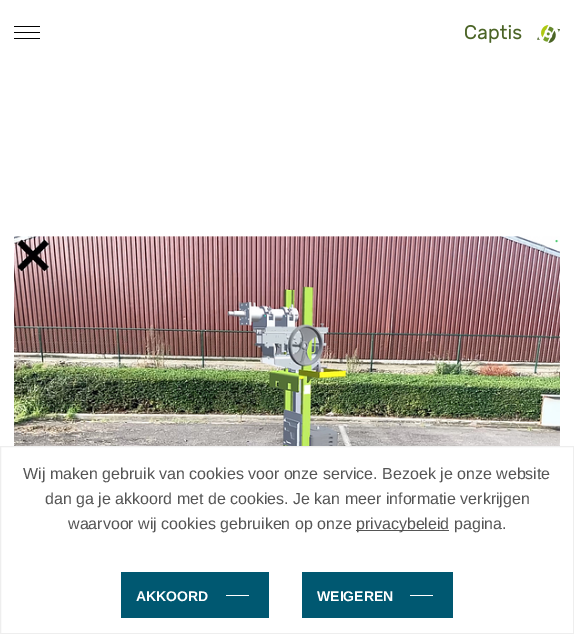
%!PS
<< /PageSize [574 634] >> setpagedevice
/rgb { dup -16 bitshift 255 div exch dup -8 bitshift 255 and 255 div exch 255 and 255 div setrgbcolor } def
/font { [ exch dup neg 0 0 3 -1 roll 0 0 ] selectfont } def
/text { moveto show } def
/picture { 5 dict begin { /h /w /y /x /name } { exch def } forall
  gsave x y translate w h scale
  w h 8 [w 0 0 h 0 0] name (r) file false 3 colorimage grestore end } def
0 634 translate 1 -1 scale
4 setmiterlimit
/s1 { /LiberationSans-Regular 16 font 16#555555 rgb } def
/s2 { /LiberationSans-Bold 14 font 16#FFFFFF rgb } def
16#FFFFFF rgb
0 0 574 634 rectfill
(pic1.raw) 14 236 546 210 picture
16#000000 rgb
14 26 26 1 rectfill
14 32 26 1 rectfill
14 38 26 1 rectfill
(pic2.raw) 465 25 57 18 picture
(pic3.raw) 537 25 23 18 picture
16#EEEEEE rgb
0.5 446.5 573 187 rectstroke
s1
(Wij maken gebruik van cookies voor onze service. Bezoek je onze website) 23 479 text
(dan ga je akkoord met de cookies. Je kan meer informatie verkrijgen) 45 504 text
(waarvoor wij cookies gebruiken op onze) 68 529 text
356 530 93 1 rectfill
(privacybeleid pagina.) 356 529 text
16#005871 rgb
121 572 148 46 rectfill
s2
(AKKOORD) 136 601 text
226 595 23 1 rectfill
16#005871 rgb
302 572 151 46 rectfill
s2
(WEIGEREN) 317 601 text
410 595 23 1 rectfill
showpage
